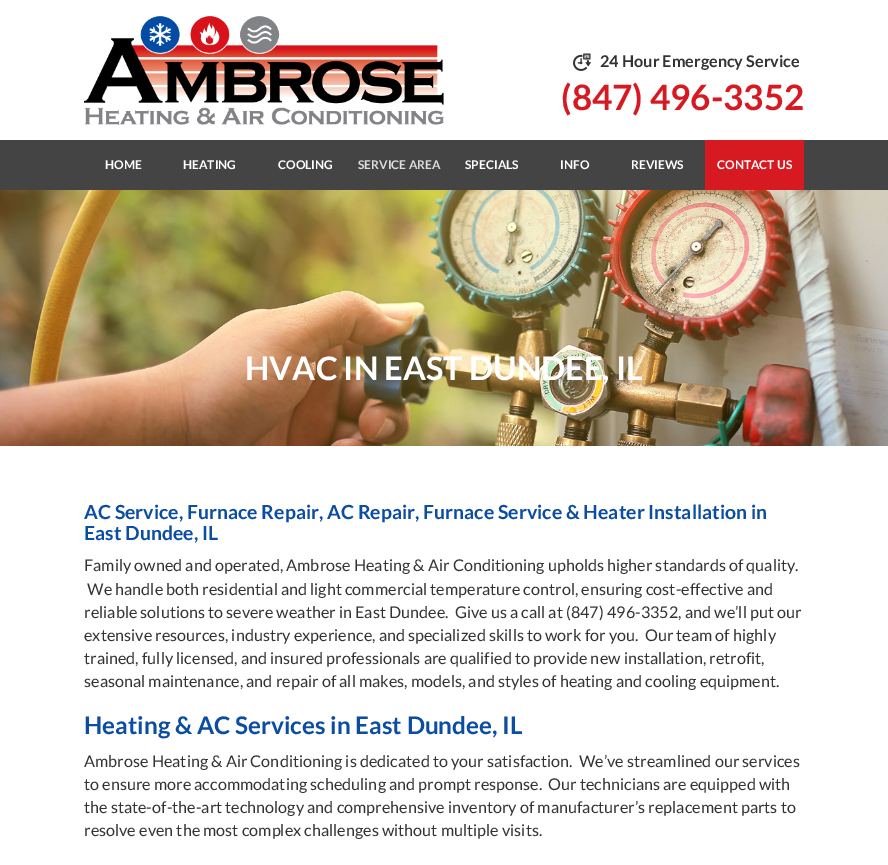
%!PS
<< /PageSize [888 865] >> setpagedevice
/rgb { dup -16 bitshift 255 div exch dup -8 bitshift 255 and 255 div exch 255 and 255 div setrgbcolor } def
/font { [ exch dup neg 0 0 3 -1 roll 0 0 ] selectfont } def
/text { moveto show } def
/picture { 5 dict begin { /h /w /y /x /name } { exch def } forall
  gsave x y translate w h scale
  w h 8 [w 0 0 h 0 0] name (r) file false 3 colorimage grestore end } def
0 865 translate 1 -1 scale
4 setmiterlimit
/s1 { /Lato-Bold 16.2 font 16#333333 rgb } def
/s2 { /Lato-Bold 35 font 16#D71A21 rgb } def
/s3 { /Lato-Bold 12 font 16#FFFFFF rgb } def
/s4 { /Lato-Bold 12 font 16#DDDDDD rgb } def
/s5 { /Lato-Bold 32.4 font 16#FFFFFF rgb } def
/s6 { /Lato-Bold 19.45 font 16#0B4DA2 rgb } def
/s7 { /Lato-Regular 16.2 font 16#333333 rgb } def
/s8 { /Lato-Bold 24.25 font 16#0B4DA2 rgb } def
16#FFFFFF rgb
0 0 888 865 rectfill
(pic1.raw) 84 15 360 110 picture
(pic2.raw) 573 53 18 18 picture
s1
(24 Hour Emergency Service) 600 67 text
s2
(\(847\) 496-3352) 561 110 text
16#444444 rgb
0 140 888 50 rectfill
s3
(HOME) 105 169 text
(HEATING) 183 169 text
(COOLING) 278 169 text
s4
(SERVICE AREA) 358 169 text
s3
(SPECIALS) 465 169 text
(INFO) 560 169 text
(REVIEWS) 631 169 text
16#D71A22 rgb
705 140 99 50 rectfill
s3
(CONTACT US) 717 169 text
(pic3.raw) 0 190 888 256 picture
s5
(HVAC IN EAST DUNDEE, IL) 245 380 text
s6
(AC Service, Furnace Repair, AC Repair, Furnace Service & Heater Installation in) 84 519 text
(East Dundee, IL) 84 540 text
s7
(Family owned and operated, Ambrose Heating & Air Conditioning upholds higher standards of quality.) 84 571 text
(We handle both residential and light commercial temperature control, ensuring cost-effective and) 87 595 text
(reliable solutions to severe weather in East Dundee.  Give us a call at \(847\) 496-3352, and we’ll put our) 84 618 text
(extensive resources, industry experience, and specialized skills to work for you.  Our team of highly) 84 641 text
(trained, fully licensed, and insured professionals are qualified to provide new installation, retrofit,) 84 664 text
(seasonal maintenance, and repair of all makes, models, and styles of heating and cooling equipment.) 84 687 text
s8
(Heating & AC Services in East Dundee, IL) 84 734 text
s7
(Ambrose Heating & Air Conditioning is dedicated to your satisfaction.  We’ve streamlined our services) 84 767 text
(to ensure more accommodating scheduling and prompt response.  Our technicians are equipped with) 84 790 text
(the state-of-the-art technology and comprehensive inventory of manufacturer’s replacement parts to) 84 813 text
(resolve even the most complex challenges without multiple visits.) 84 836 text
showpage
